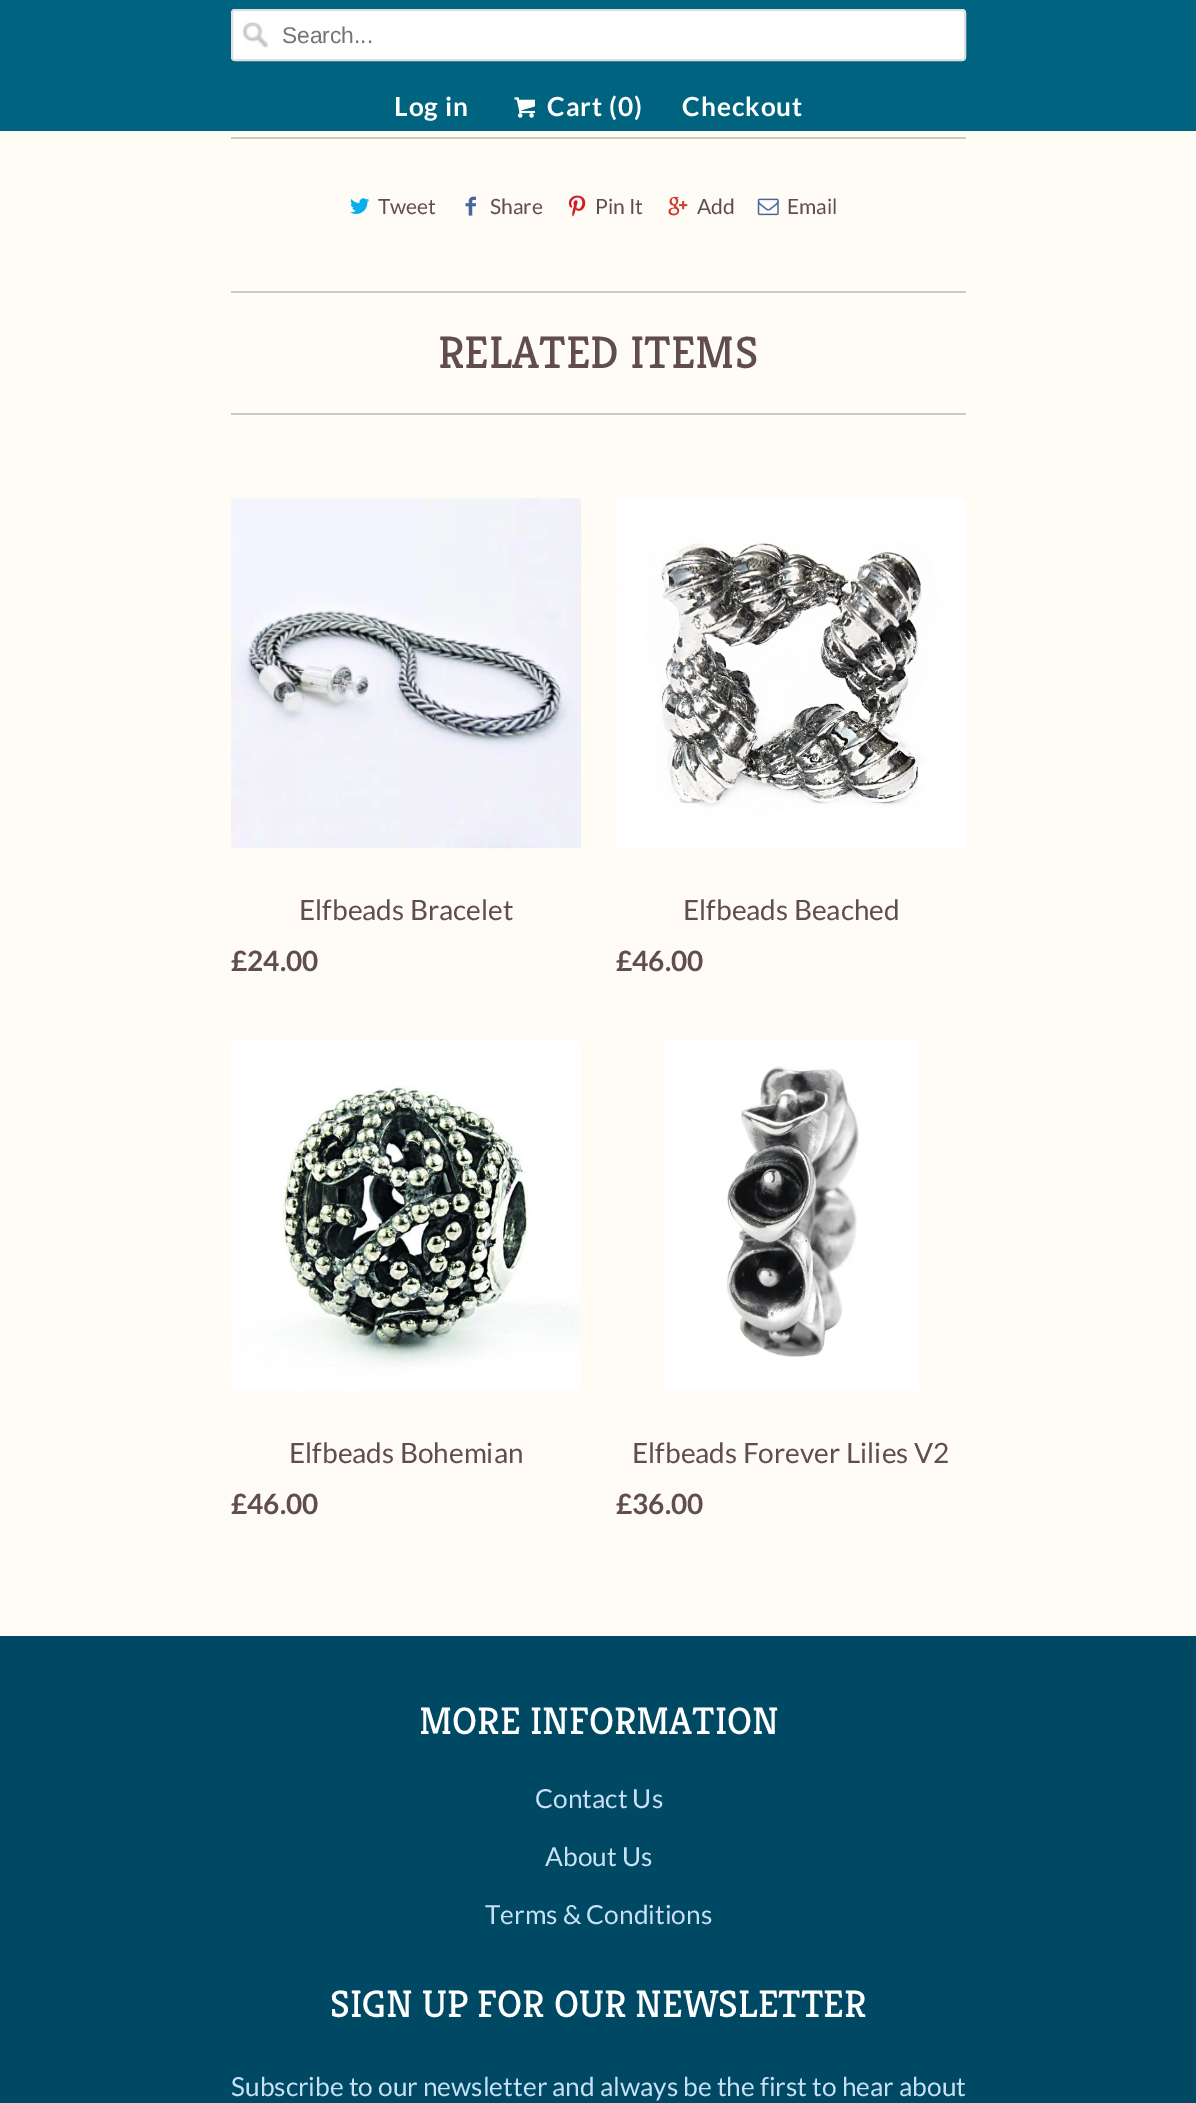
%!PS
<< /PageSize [1196 2103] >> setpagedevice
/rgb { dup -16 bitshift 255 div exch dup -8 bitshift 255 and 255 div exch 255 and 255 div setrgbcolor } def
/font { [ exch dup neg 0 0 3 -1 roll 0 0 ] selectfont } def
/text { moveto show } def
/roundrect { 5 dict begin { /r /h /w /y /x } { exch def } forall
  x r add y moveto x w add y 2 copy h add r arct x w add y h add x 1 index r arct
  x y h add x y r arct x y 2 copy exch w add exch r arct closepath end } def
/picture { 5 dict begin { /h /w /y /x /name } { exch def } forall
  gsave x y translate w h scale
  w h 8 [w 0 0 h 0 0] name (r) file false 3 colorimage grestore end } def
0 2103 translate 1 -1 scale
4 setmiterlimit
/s1 { /LiberationSans-Regular 22.75 font 16#757575 rgb } def
/s2 { /Lato-Regular 21 font 16#614D4B rgb } def
/s3 { /Kreon-Regular 45.5 font 16#614D4B rgb } def
/s4 { /Lato-Regular 28 font 16#614D4B rgb } def
/s5 { /Lato-Bold 28 font 16#614D4B rgb } def
/s6 { /Kreon-Regular 38.5 font 16#FFFFFF rgb } def
/s7 { /Lato-Regular 26.25 font 16#C9E1F5 rgb } def
16#FFFCF6 rgb
0 0 1196 2103 rectfill
16#006480 rgb
0 0 1196 131 rectfill
16#FFFFFF rgb
231 9 735 52 4 roundrect fill
(pic1.raw) 243 22 25 26 picture
16#DFDFDF rgb
2 setlinewidth
232 10 733 50 3 roundrect stroke
s1
(Search...) 282 43 text
/Lato-Bold 26.25 font
16#FFFFFF rgb
394 116 moveto 1 0 (Log in) ashow
(pic2.raw) 514 97 21 21 picture
547 116 moveto 1 0 (Cart \(0\)) ashow
682 116 moveto 1 0 (Checkout) ashow
16#D1C8BF rgb
231 137 735 2 rectfill
(pic3.raw) 350 198 20 16 picture
s2
(Tweet) 378 214 text
(pic4.raw) 465 196 11 20 picture
(Share) 490 214 text
(pic5.raw) 568 195 18 22 picture
(Pin It) 595 214 text
(pic6.raw) 668 196 20 20 picture
(Add) 697 214 text
(pic7.raw) 757 198 22 18 picture
(Email) 787 214 text
16#D1C8BF rgb
231 291 735 2 rectfill
231 413 735 2 rectfill
s3
(RELATED ITEMS) 438 368 text
(pic8.raw) 231 498 350 351 picture
s4
(Elfbeads Bracelet) 299 920 text
s5
(£24.00) 231 971 text
(pic9.raw) 616 498 350 350 picture
s4
(Elfbeads Beached) 683 920 text
s5
(£46.00) 616 971 text
(pic10.raw) 231 1041 350 350 picture
s4
(Elfbeads Bohemian) 289 1463 text
s5
(£46.00) 231 1514 text
(pic11.raw) 663 1041 256 350 picture
s4
(Elfbeads Forever Lilies V2) 632 1463 text
s5
(£36.00) 616 1514 text
16#004964 rgb
0 1636 1196 467 rectfill
s6
(MORE INFORMATION) 419 1734 text
s7
(Contact Us) 535 1808 text
(About Us) 545 1866 text
(Terms & Conditions) 485 1924 text
s6
(SIGN UP FOR OUR NEWSLETTER) 330 2017 text
s7
(Subscribe to our newsletter and always be the first to hear about) 231 2096 text
showpage
